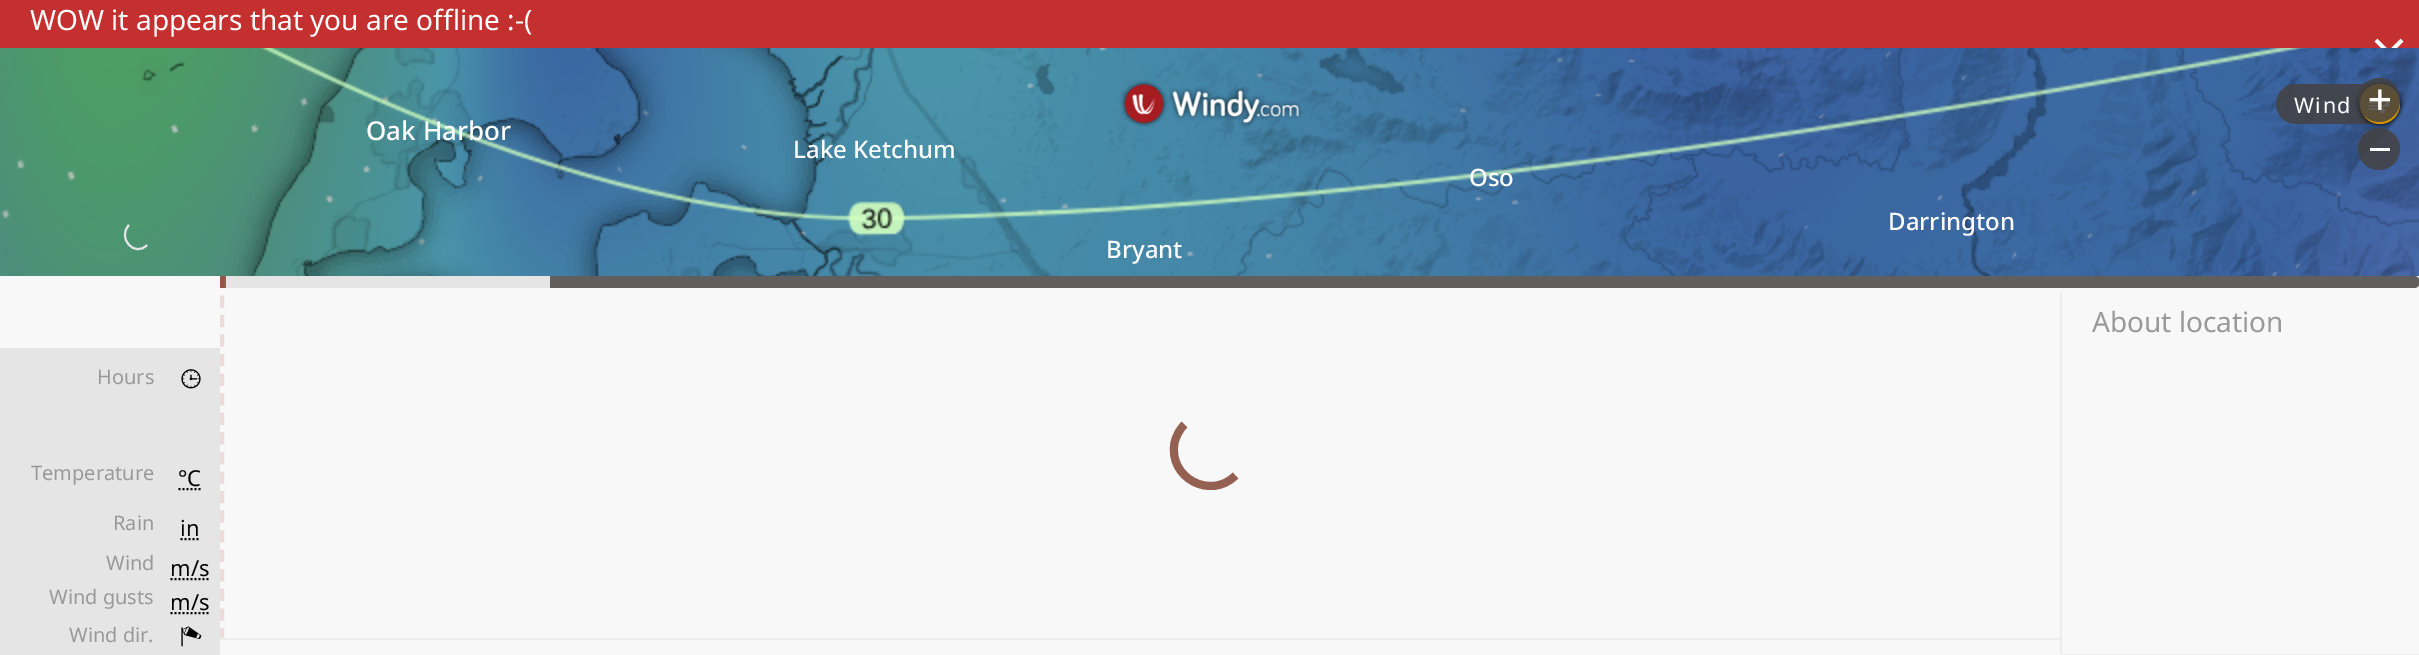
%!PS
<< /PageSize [2419 655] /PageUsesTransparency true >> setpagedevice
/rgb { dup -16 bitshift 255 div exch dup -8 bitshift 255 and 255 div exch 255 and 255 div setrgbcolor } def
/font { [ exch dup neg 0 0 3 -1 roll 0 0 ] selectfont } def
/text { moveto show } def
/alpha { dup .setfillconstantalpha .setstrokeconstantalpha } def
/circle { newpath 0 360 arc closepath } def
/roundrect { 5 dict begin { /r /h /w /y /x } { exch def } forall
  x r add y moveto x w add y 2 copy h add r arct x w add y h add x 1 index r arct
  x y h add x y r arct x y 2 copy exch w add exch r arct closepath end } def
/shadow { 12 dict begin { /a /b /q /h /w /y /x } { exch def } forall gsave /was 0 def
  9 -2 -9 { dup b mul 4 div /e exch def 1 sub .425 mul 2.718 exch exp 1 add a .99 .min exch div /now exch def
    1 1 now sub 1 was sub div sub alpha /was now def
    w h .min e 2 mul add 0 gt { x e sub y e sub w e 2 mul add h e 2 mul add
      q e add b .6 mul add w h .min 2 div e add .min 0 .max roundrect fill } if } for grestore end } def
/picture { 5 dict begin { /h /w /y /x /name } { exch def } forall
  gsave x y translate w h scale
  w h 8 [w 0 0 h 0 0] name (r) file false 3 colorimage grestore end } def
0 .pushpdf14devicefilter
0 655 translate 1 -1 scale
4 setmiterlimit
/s1 { /NotoSans-Regular 28 font 16#FFFFFF rgb } def
/s2 { /NotoSans-Medium 26 font 16#FFFFFF rgb } def
/s3 { /NotoSans-Medium 24 font 16#FFFFFF rgb } def
/s4 { /NotoSans-Regular 28 font 16#999999 rgb } def
/s5 { /NotoSans-Regular 20 font 16#999999 rgb } def
/s6 { /NotoSans-Regular 22 font 16#000000 rgb } def
16#FFFFFF rgb
0 0 2419 655 rectfill
16#C42F2F rgb
0 0 2419 48 rectfill
s1
(WOW it appears that you are offline :-\() 30 30 text
(pic1.raw) 2374 38 30 10 picture
(pic8.raw) 874 48 512 228 picture
(pic6.raw) 0 48 362 228 picture
(pic7.raw) 362 48 512 228 picture
(pic9.raw) 1386 48 512 228 picture
(pic10.raw) 1898 48 512 228 picture
(pic12.raw) 1 48 2368 228 picture
(pic15.raw) 874 48 512 228 picture
(pic13.raw) 141 48 221 228 picture
(pic14.raw) 362 48 512 228 picture
(pic16.raw) 1386 48 512 228 picture
(pic17.raw) 1898 48 512 228 picture
(pic19.raw) 259 48 2050 189 picture
(pic2.raw) 1120 80 48 47 picture
(pic3.raw) 1169 87 134 40 picture
0.84 alpha
16#444141 rgb
2276 84 124 40 20 roundrect fill
/NotoSans-Regular 21.5 font
1 alpha
16#FFFFFF rgb
2294 113 moveto 1.5 0 (Wind) ashow
16#000000 rgb
2360 84 40 40 20 2.5 1 shadow
16#D49500 rgb
2380 104 20 circle fill
(pic4.raw) 2368 101 22 13 picture
0.84 alpha
16#444141 rgb
2358 78 42 44 21 roundrect fill
1 alpha
(pic5.raw) 2369 89 22 21 picture
0.84 alpha
2379 149 21 circle fill
1 alpha
16#FFFFFF rgb
2370 148 20 3 rectfill
(pic11.raw) 2410 48 9 228 picture
(pic18.raw) 2410 48 9 228 picture
s2
(Oak Harbor) 366 140 text
s3
(Lake Ketchum) 793 158 text
(Bryant) 1106 258 text
(Oso) 1469 186 text
(Darrington) 1888 230 text
16#E5E5E5 rgb
2 setlinewidth
147 245 moveto 135 258 116.5 238 129 225 curveto stroke
16#F8F8F8 rgb
0 276 2419 379 rectfill
16#615E5E rgb
220 276 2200 12 6 roundrect fill
16#946051 rgb
220 276 6 12 rectfill
16#E5E5E5 rgb
226 276 324 12 rectfill
0.12 alpha
16#9D0300 rgb
4 setlinewidth
[12 7.56] 0 setdash
222 276 moveto 222 640 lineto stroke
1 alpha
16#EDEDED rgb
2060 654 359 1 rectfill
2060 292 2 363 rectfill
220 638 1842 2 rectfill
s4
(About location) 2092 332 text
16#E5E5E5 rgb
0 348 220 307 rectfill
s5
(Hours) 97 384 text
(pic20.raw) 181 369 20 20 picture
(Temperature) 31 480 text
s6
(°C) 178 486 text
2 setlinewidth
[2 2] 0 setdash
178.5 489 moveto 201.5 489 lineto stroke
s5
(Rain) 113 530 text
s6
(in) 180 536 text
180.5 539 moveto 199.5 539 lineto stroke
s5
(Wind) 106 570 text
s6
(m/s) 170 576 text
170.5 579 moveto 209.5 579 lineto stroke
s5
(Wind gusts) 49 604 text
s6
(m/s) 170 610 text
170.5 613 moveto 209.5 613 lineto stroke
s5
(Wind dir.) 69 642 text
(pic21.raw) 181 626 21 21 picture
16#946051 rgb
8 setlinewidth
[] 0 setdash
1235.5 475.5 moveto 1210.5 500.5 1168 477.5 1174.5 443 curveto 1176 436 1179.5 429.5 1184.5 424.5 curveto stroke
.poppdf14devicefilter showpage
